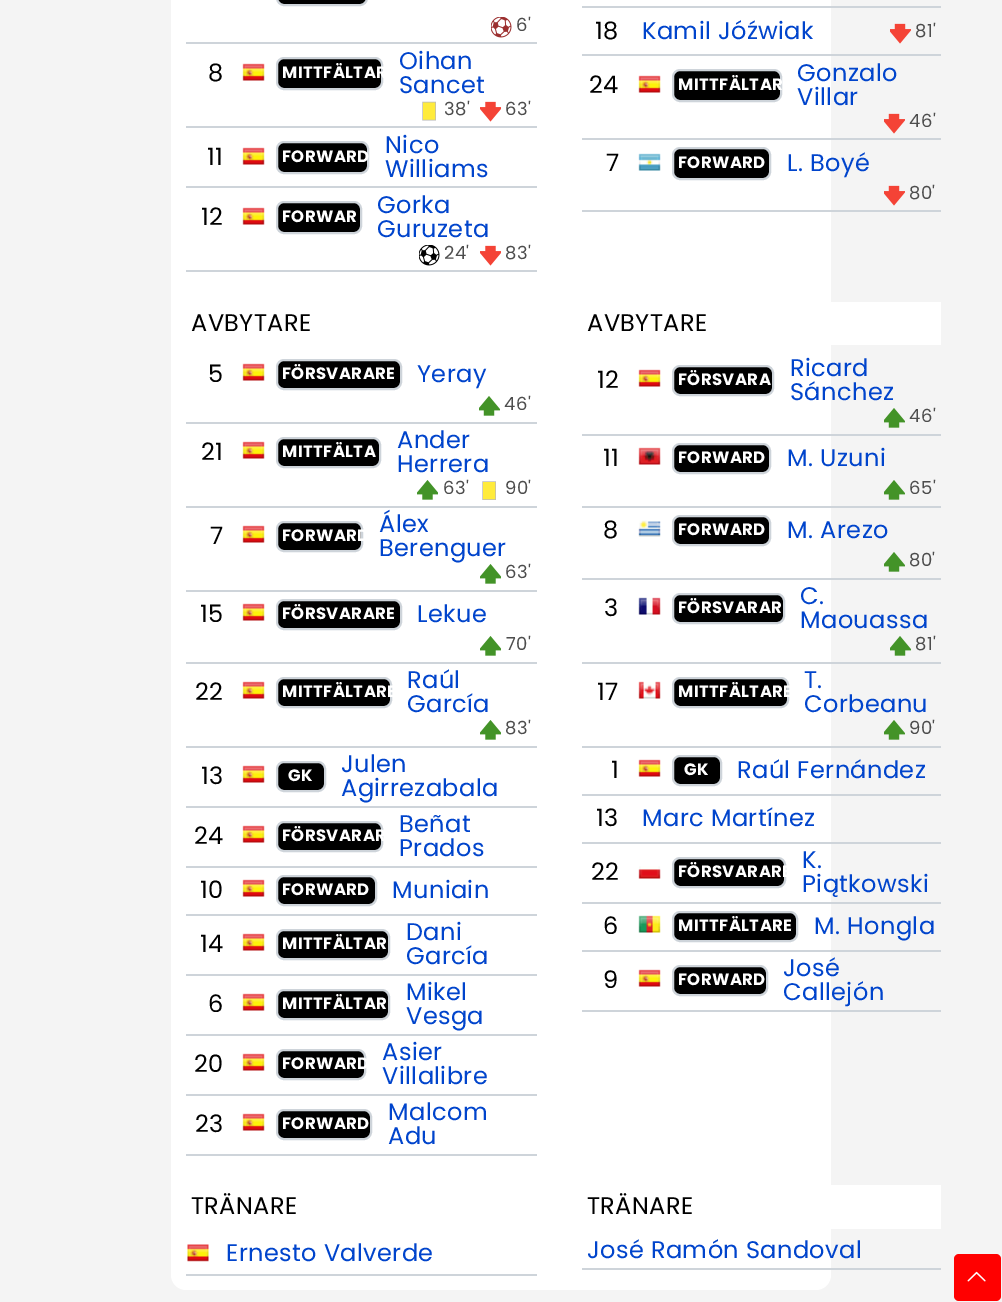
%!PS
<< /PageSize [1002 1302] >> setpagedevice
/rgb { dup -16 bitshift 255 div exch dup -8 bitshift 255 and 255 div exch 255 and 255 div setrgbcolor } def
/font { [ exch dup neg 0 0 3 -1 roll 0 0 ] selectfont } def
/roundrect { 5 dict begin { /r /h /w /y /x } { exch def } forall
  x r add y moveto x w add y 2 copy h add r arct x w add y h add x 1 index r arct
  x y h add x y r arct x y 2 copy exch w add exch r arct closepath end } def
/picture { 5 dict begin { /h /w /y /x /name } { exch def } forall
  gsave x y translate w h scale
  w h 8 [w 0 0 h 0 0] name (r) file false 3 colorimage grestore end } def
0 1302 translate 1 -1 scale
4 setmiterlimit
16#F4F4F4 rgb
0 0 1002 1302 rectfill
16#FFFFFF rgb
171 -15 660 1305 15 roundrect fill
16#CED4DA rgb
186 42 351 2 rectfill
16#000000 rgb
277 -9 90 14 7 roundrect gsave fill grestore
16#CED4DA rgb
2 setlinewidth
stroke
(pic1.raw) 491 17 21 21 picture
/Poppins-Regular 18 font
16#4D4D4D rgb
516 31 moveto 0.4 0 (6') ashow
16#CED4DA rgb
186 126 351 2 rectfill
/Poppins-Regular 24 font
16#000000 rgb
208 81 moveto 0.4 0 (8) ashow
(pic2.raw) 242 63 23 18 picture
277 58 105 31 7 roundrect gsave fill grestore
16#CED4DA rgb
stroke
/Poppins-Bold 16.5 font
16#FFFFFF rgb
282 78 moveto 0.4 0 (MITTFÄLTAR) ashow
/Poppins-Regular 24 font
16#0044CC rgb
399 69 moveto 0.4 0 (Oihan) ashow
399 93 moveto 0.4 0 (Sancet) ashow
16#FFEB3B rgb
423 102 13 18 rectfill
16#BBBBBB rgb
0.5 setlinewidth
422.5 102 moveto 435.5 102 lineto 435.5 120 lineto 422.5 120 lineto closepath stroke
/Poppins-Regular 18 font
16#4D4D4D rgb
444 115 moveto 0.4 0 (38') ashow
(pic3.raw) 480 101 21 21 picture
505 115 moveto 0.4 0 (63') ashow
16#CED4DA rgb
186 186 351 2 rectfill
/Poppins-Regular 24 font
16#000000 rgb
207 165 moveto 0.4 0 (11) ashow
(pic2.raw) 242 147 23 18 picture
277 142 91 31 7 roundrect gsave fill grestore
16#CED4DA rgb
2 setlinewidth
stroke
/Poppins-Bold 16.5 font
16#FFFFFF rgb
282 162 moveto 0.4 0 (FORWARD) ashow
/Poppins-Regular 24 font
16#0044CC rgb
385 153 moveto 0.4 0 (Nico) ashow
385 177 moveto 0.4 0 (Williams) ashow
16#CED4DA rgb
186 270 351 2 rectfill
16#000000 rgb
201 225 moveto 0.4 0 (12) ashow
(pic2.raw) 242 207 23 18 picture
277 202 84 31 7 roundrect gsave fill grestore
16#CED4DA rgb
stroke
/Poppins-Bold 16.5 font
16#FFFFFF rgb
282 222 moveto 0.4 0 (FORWAR) ashow
/Poppins-Regular 24 font
16#0044CC rgb
377 213 moveto 0.4 0 (Gorka) ashow
377 237 moveto 0.4 0 (Guruzeta) ashow
(pic4.raw) 419 245 21 21 picture
/Poppins-Regular 18 font
16#4D4D4D rgb
444 259 moveto 0.4 0 (24') ashow
(pic3.raw) 480 245 21 21 picture
505 259 moveto 0.4 0 (83') ashow
16#CED4DA rgb
582 6 359 2 rectfill
582 54 359 2 rectfill
/Poppins-Regular 24 font
16#000000 rgb
595 39 moveto 0.4 0 (18) ashow
16#0044CC rgb
642 39 moveto 0.4 0 (Kamil Jóźwiak) ashow
(pic5.raw) 890 23 21 21 picture
/Poppins-Regular 18 font
16#4D4D4D rgb
915 37 moveto 0.4 0 (81') ashow
16#CED4DA rgb
582 138 359 2 rectfill
/Poppins-Regular 24 font
16#000000 rgb
589 93 moveto 0.4 0 (24) ashow
(pic6.raw) 638 75 23 18 picture
673 70 108 31 7 roundrect gsave fill grestore
16#CED4DA rgb
stroke
/Poppins-Bold 16.5 font
16#FFFFFF rgb
678 90 moveto 0.4 0 (MITTFÄLTAR) ashow
/Poppins-Regular 24 font
16#0044CC rgb
797 81 moveto 0.4 0 (Gonzalo) ashow
797 105 moveto 0.4 0 (Villar) ashow
(pic5.raw) 884 113 21 21 picture
/Poppins-Regular 18 font
16#4D4D4D rgb
909 127 moveto 0.4 0 (46') ashow
16#CED4DA rgb
582 210 359 2 rectfill
/Poppins-Regular 24 font
16#000000 rgb
606 171 moveto 0.4 0 (7) ashow
(pic7.raw) 638 153 23 18 picture
673 148 97 31 7 roundrect gsave fill grestore
16#CED4DA rgb
stroke
/Poppins-Bold 16.5 font
16#FFFFFF rgb
678 168 moveto 0.4 0 (FORWARD) ashow
/Poppins-Regular 24 font
16#0044CC rgb
787 171 moveto 0.4 0 (L. Boyé) ashow
(pic5.raw) 884 185 21 21 picture
/Poppins-Regular 18 font
16#4D4D4D rgb
909 199 moveto 0.4 0 (80') ashow
/Poppins-Regular 24 font
16#000000 rgb
191 331 moveto 0.4 0 (AVBYTARE) ashow
16#CED4DA rgb
186 422 351 2 rectfill
16#000000 rgb
208 382 moveto 0.4 0 (5) ashow
(pic2.raw) 242 363 23 18 picture
277 360 124 29 7 roundrect gsave fill grestore
16#CED4DA rgb
stroke
/Poppins-Bold 16.5 font
16#FFFFFF rgb
282 379 moveto 0.4 0 (FÖRSVARARE) ashow
/Poppins-Regular 24 font
16#0044CC rgb
417 382 moveto 0.4 0 (Yeray) ashow
(pic8.raw) 479 396 21 20 picture
/Poppins-Regular 18 font
16#4D4D4D rgb
504 410 moveto 0.4 0 (46') ashow
16#CED4DA rgb
186 506 351 2 rectfill
/Poppins-Regular 24 font
16#000000 rgb
201 460 moveto 0.4 0 (21) ashow
(pic2.raw) 242 441 23 18 picture
277 438 103 29 7 roundrect gsave fill grestore
16#CED4DA rgb
stroke
/Poppins-Bold 16.5 font
16#FFFFFF rgb
282 457 moveto 0.4 0 (MITTFÄLTA) ashow
/Poppins-Regular 24 font
16#0044CC rgb
397 448 moveto 0.4 0 (Ander) ashow
397 472 moveto 0.4 0 (Herrera) ashow
(pic9.raw) 417 480 21 20 picture
/Poppins-Regular 18 font
16#4D4D4D rgb
443 494 moveto 0.4 0 (63') ashow
16#FFEB3B rgb
483 482 13 18 rectfill
16#BBBBBB rgb
0.5 setlinewidth
482.5 481.5 moveto 495.5 481.5 lineto 495.5 499.5 lineto 482.5 499.5 lineto closepath stroke
16#4D4D4D rgb
505 494 moveto 0.4 0 (90') ashow
16#CED4DA rgb
186 590 351 2 rectfill
/Poppins-Regular 24 font
16#000000 rgb
210 544 moveto 0.4 0 (7) ashow
(pic2.raw) 242 525 23 18 picture
277 522 85 29 7 roundrect gsave fill grestore
16#CED4DA rgb
2 setlinewidth
stroke
/Poppins-Bold 16.5 font
16#FFFFFF rgb
282 541 moveto 0.4 0 (FORWARD) ashow
/Poppins-Regular 24 font
16#0044CC rgb
379 532 moveto 0.4 0 (Álex) ashow
379 556 moveto 0.4 0 (Berenguer) ashow
(pic9.raw) 480 564 21 20 picture
/Poppins-Regular 18 font
16#4D4D4D rgb
505 578 moveto 0.4 0 (63') ashow
16#CED4DA rgb
186 662 351 2 rectfill
/Poppins-Regular 24 font
16#000000 rgb
200 622 moveto 0.4 0 (15) ashow
(pic2.raw) 242 603 23 18 picture
277 600 124 29 7 roundrect gsave fill grestore
16#CED4DA rgb
stroke
/Poppins-Bold 16.5 font
16#FFFFFF rgb
282 619 moveto 0.4 0 (FÖRSVARARE) ashow
/Poppins-Regular 24 font
16#0044CC rgb
417 622 moveto 0.4 0 (Lekue) ashow
(pic9.raw) 480 636 21 20 picture
/Poppins-Regular 18 font
16#4D4D4D rgb
506 650 moveto 0.4 0 (70') ashow
16#CED4DA rgb
186 746 351 2 rectfill
/Poppins-Regular 24 font
16#000000 rgb
195 700 moveto 0.4 0 (22) ashow
(pic2.raw) 242 681 23 18 picture
277 678 114 29 7 roundrect gsave fill grestore
16#CED4DA rgb
stroke
/Poppins-Bold 16.5 font
16#FFFFFF rgb
282 697 moveto 0.4 0 (MITTFÄLTARE) ashow
/Poppins-Regular 24 font
16#0044CC rgb
407 688 moveto 0.4 0 (Raúl) ashow
407 712 moveto 0.4 0 (García) ashow
(pic9.raw) 480 720 21 20 picture
/Poppins-Regular 18 font
16#4D4D4D rgb
505 734 moveto 0.4 0 (83') ashow
16#CED4DA rgb
186 806 351 2 rectfill
/Poppins-Regular 24 font
16#000000 rgb
201 784 moveto 0.4 0 (13) ashow
(pic2.raw) 242 765 23 18 picture
277 762 48 29 7 roundrect gsave fill grestore
16#CED4DA rgb
stroke
/Poppins-Bold 16.5 font
16#FFFFFF rgb
288 781 moveto 0.4 0 (GK) ashow
/Poppins-Regular 24 font
16#0044CC rgb
341 772 moveto 0.4 0 (Julen) ashow
341 796 moveto 0.4 0 (Agirrezabala) ashow
16#CED4DA rgb
186 866 351 2 rectfill
16#000000 rgb
194 844 moveto 0.4 0 (24) ashow
(pic2.raw) 242 825 23 18 picture
277 822 105 29 7 roundrect gsave fill grestore
16#CED4DA rgb
stroke
/Poppins-Bold 16.5 font
16#FFFFFF rgb
282 841 moveto 0.4 0 (FÖRSVARAR) ashow
/Poppins-Regular 24 font
16#0044CC rgb
399 832 moveto 0.4 0 (Beñat) ashow
399 856 moveto 0.4 0 (Prados) ashow
16#CED4DA rgb
186 914 351 2 rectfill
16#000000 rgb
200 898 moveto 0.4 0 (10) ashow
(pic2.raw) 242 879 23 18 picture
277 876 99 29 7 roundrect gsave fill grestore
16#CED4DA rgb
stroke
/Poppins-Bold 16.5 font
16#FFFFFF rgb
282 895 moveto 0.4 0 (FORWARD) ashow
/Poppins-Regular 24 font
16#0044CC rgb
392 898 moveto 0.4 0 (Muniain) ashow
16#CED4DA rgb
186 974 351 2 rectfill
16#000000 rgb
200 952 moveto 0.4 0 (14) ashow
(pic2.raw) 242 933 23 18 picture
277 930 112 29 7 roundrect gsave fill grestore
16#CED4DA rgb
stroke
/Poppins-Bold 16.5 font
16#FFFFFF rgb
282 949 moveto 0.4 0 (MITTFÄLTAR) ashow
/Poppins-Regular 24 font
16#0044CC rgb
406 940 moveto 0.4 0 (Dani) ashow
406 964 moveto 0.4 0 (García) ashow
16#CED4DA rgb
186 1034 351 2 rectfill
16#000000 rgb
208 1012 moveto 0.4 0 (6) ashow
(pic2.raw) 242 993 23 18 picture
277 990 112 29 7 roundrect gsave fill grestore
16#CED4DA rgb
stroke
/Poppins-Bold 16.5 font
16#FFFFFF rgb
282 1009 moveto 0.4 0 (MITTFÄLTAR) ashow
/Poppins-Regular 24 font
16#0044CC rgb
406 1000 moveto 0.4 0 (Mikel) ashow
406 1024 moveto 0.4 0 (Vesga) ashow
16#CED4DA rgb
186 1094 351 2 rectfill
16#000000 rgb
194 1072 moveto 0.4 0 (20) ashow
(pic2.raw) 242 1053 23 18 picture
277 1050 88 29 7 roundrect gsave fill grestore
16#CED4DA rgb
stroke
/Poppins-Bold 16.5 font
16#FFFFFF rgb
282 1069 moveto 0.4 0 (FORWARD) ashow
/Poppins-Regular 24 font
16#0044CC rgb
382 1060 moveto 0.4 0 (Asier) ashow
382 1084 moveto 0.4 0 (Villalibre) ashow
16#CED4DA rgb
186 1154 351 2 rectfill
16#000000 rgb
195 1132 moveto 0.4 0 (23) ashow
(pic2.raw) 242 1113 23 18 picture
277 1110 94 29 7 roundrect gsave fill grestore
16#CED4DA rgb
stroke
/Poppins-Bold 16.5 font
16#FFFFFF rgb
282 1129 moveto 0.4 0 (FORWARD) ashow
/Poppins-Regular 24 font
16#0044CC rgb
388 1120 moveto 0.4 0 (Malcom) ashow
388 1144 moveto 0.4 0 (Adu) ashow
16#FFFFFF rgb
831 302 110 43 rectfill
16#000000 rgb
587 331 moveto 0.4 0 (AVBYTARE) ashow
16#CED4DA rgb
582 434 359 2 rectfill
16#000000 rgb
597 388 moveto 0.4 0 (12) ashow
(pic6.raw) 638 369 23 18 picture
673 366 100 29 7 roundrect gsave fill grestore
16#CED4DA rgb
stroke
/Poppins-Bold 16.5 font
16#FFFFFF rgb
678 385 moveto 0.4 0 (FÖRSVARA) ashow
/Poppins-Regular 24 font
16#0044CC rgb
790 376 moveto 0.4 0 (Ricard) ashow
790 400 moveto 0.4 0 (Sánchez) ashow
(pic10.raw) 884 408 21 20 picture
/Poppins-Regular 18 font
16#4D4D4D rgb
909 422 moveto 0.4 0 (46') ashow
16#CED4DA rgb
582 506 359 2 rectfill
/Poppins-Regular 24 font
16#000000 rgb
603 466 moveto 0.4 0 (11) ashow
(pic11.raw) 638 447 23 18 picture
673 444 97 29 7 roundrect gsave fill grestore
16#CED4DA rgb
stroke
/Poppins-Bold 16.5 font
16#FFFFFF rgb
678 463 moveto 0.4 0 (FORWARD) ashow
/Poppins-Regular 24 font
16#0044CC rgb
787 466 moveto 0.4 0 (M. Uzuni) ashow
(pic10.raw) 884 480 21 20 picture
/Poppins-Regular 18 font
16#4D4D4D rgb
909 494 moveto 0.4 0 (65') ashow
16#CED4DA rgb
582 578 359 2 rectfill
/Poppins-Regular 24 font
16#000000 rgb
603 538 moveto 0.4 0 (8) ashow
(pic12.raw) 638 520 23 17 picture
673 516 97 29 7 roundrect gsave fill grestore
16#CED4DA rgb
stroke
/Poppins-Bold 16.5 font
16#FFFFFF rgb
678 535 moveto 0.4 0 (FORWARD) ashow
/Poppins-Regular 24 font
16#0044CC rgb
787 538 moveto 0.4 0 (M. Arezo) ashow
(pic10.raw) 884 552 21 20 picture
/Poppins-Regular 18 font
16#4D4D4D rgb
909 566 moveto 0.4 0 (80') ashow
16#CED4DA rgb
582 662 359 2 rectfill
/Poppins-Regular 24 font
16#000000 rgb
604 616 moveto 0.4 0 (3) ashow
(pic13.raw) 638 597 23 18 picture
673 594 111 29 7 roundrect gsave fill grestore
16#CED4DA rgb
stroke
/Poppins-Bold 16.5 font
16#FFFFFF rgb
678 613 moveto 0.4 0 (FÖRSVARAR) ashow
/Poppins-Regular 24 font
16#0044CC rgb
800 604 moveto 0.4 0 (C.) ashow
800 628 moveto 0.4 0 (Maouassa) ashow
(pic10.raw) 890 636 21 20 picture
/Poppins-Regular 18 font
16#4D4D4D rgb
915 650 moveto 0.4 0 (81') ashow
16#CED4DA rgb
582 746 359 2 rectfill
/Poppins-Regular 24 font
16#000000 rgb
597 700 moveto 0.4 0 (17) ashow
(pic14.raw) 638 681 23 18 picture
673 678 115 29 7 roundrect gsave fill grestore
16#CED4DA rgb
stroke
/Poppins-Bold 16.5 font
16#FFFFFF rgb
678 697 moveto 0.4 0 (MITTFÄLTARE) ashow
/Poppins-Regular 24 font
16#0044CC rgb
804 688 moveto 0.4 0 (T.) ashow
804 712 moveto 0.4 0 (Corbeanu) ashow
(pic10.raw) 884 720 21 20 picture
/Poppins-Regular 18 font
16#4D4D4D rgb
909 734 moveto 0.4 0 (90') ashow
16#CED4DA rgb
582 794 359 2 rectfill
/Poppins-Regular 24 font
16#000000 rgb
611 778 moveto 0.4 0 (1) ashow
(pic6.raw) 638 759 23 18 picture
673 756 48 29 7 roundrect gsave fill grestore
16#CED4DA rgb
stroke
/Poppins-Bold 16.5 font
16#FFFFFF rgb
684 775 moveto 0.4 0 (GK) ashow
/Poppins-Regular 24 font
16#0044CC rgb
737 778 moveto 0.4 0 (Raúl Fernández) ashow
16#CED4DA rgb
582 842 359 2 rectfill
16#000000 rgb
596 826 moveto 0.4 0 (13) ashow
16#0044CC rgb
642 826 moveto 0.4 0 (Marc Martínez) ashow
16#CED4DA rgb
582 902 359 2 rectfill
16#000000 rgb
591 880 moveto 0.4 0 (22) ashow
(pic15.raw) 638 866 23 13 picture
673 858 112 29 7 roundrect gsave fill grestore
16#CED4DA rgb
stroke
/Poppins-Bold 16.5 font
16#FFFFFF rgb
678 877 moveto 0.4 0 (FÖRSVARARE) ashow
/Poppins-Regular 24 font
16#0044CC rgb
802 868 moveto 0.4 0 (K.) ashow
802 892 moveto 0.4 0 (Piątkowski) ashow
16#CED4DA rgb
582 950 359 2 rectfill
16#000000 rgb
603 934 moveto 0.4 0 (6) ashow
(pic16.raw) 638 915 23 18 picture
673 912 124 29 7 roundrect gsave fill grestore
16#CED4DA rgb
stroke
/Poppins-Bold 16.5 font
16#FFFFFF rgb
678 931 moveto 0.4 0 (MITTFÄLTARE) ashow
/Poppins-Regular 24 font
16#0044CC rgb
814 934 moveto 0.4 0 (M. Hongla) ashow
16#CED4DA rgb
582 1010 359 2 rectfill
16#000000 rgb
603 988 moveto 0.4 0 (9) ashow
(pic6.raw) 638 969 23 18 picture
673 966 94 29 7 roundrect gsave fill grestore
16#CED4DA rgb
stroke
/Poppins-Bold 16.5 font
16#FFFFFF rgb
678 985 moveto 0.4 0 (FORWARD) ashow
/Poppins-Regular 24 font
16#0044CC rgb
783 976 moveto 0.4 0 (José) ashow
783 1000 moveto 0.4 0 (Callejón) ashow
16#000000 rgb
191 1214 moveto 0.4 0 (TRÄNARE) ashow
16#CED4DA rgb
186 1274 351 2 rectfill
(pic17.raw) 187 1244 22 18 picture
16#0044CC rgb
226 1261 moveto 0.4 0 (Ernesto Valverde) ashow
16#FFFFFF rgb
831 1185 110 44 rectfill
16#000000 rgb
587 1214 moveto 0.4 0 (TRÄNARE) ashow
16#CED4DA rgb
582 1268 359 2 rectfill
16#0044CC rgb
587 1258 moveto 0.4 0 (José Ramón Sandoval) ashow
16#FF0000 rgb
954 1254 47 47 5 roundrect fill
(pic18.raw) 967 1271 19 11 picture
showpage
